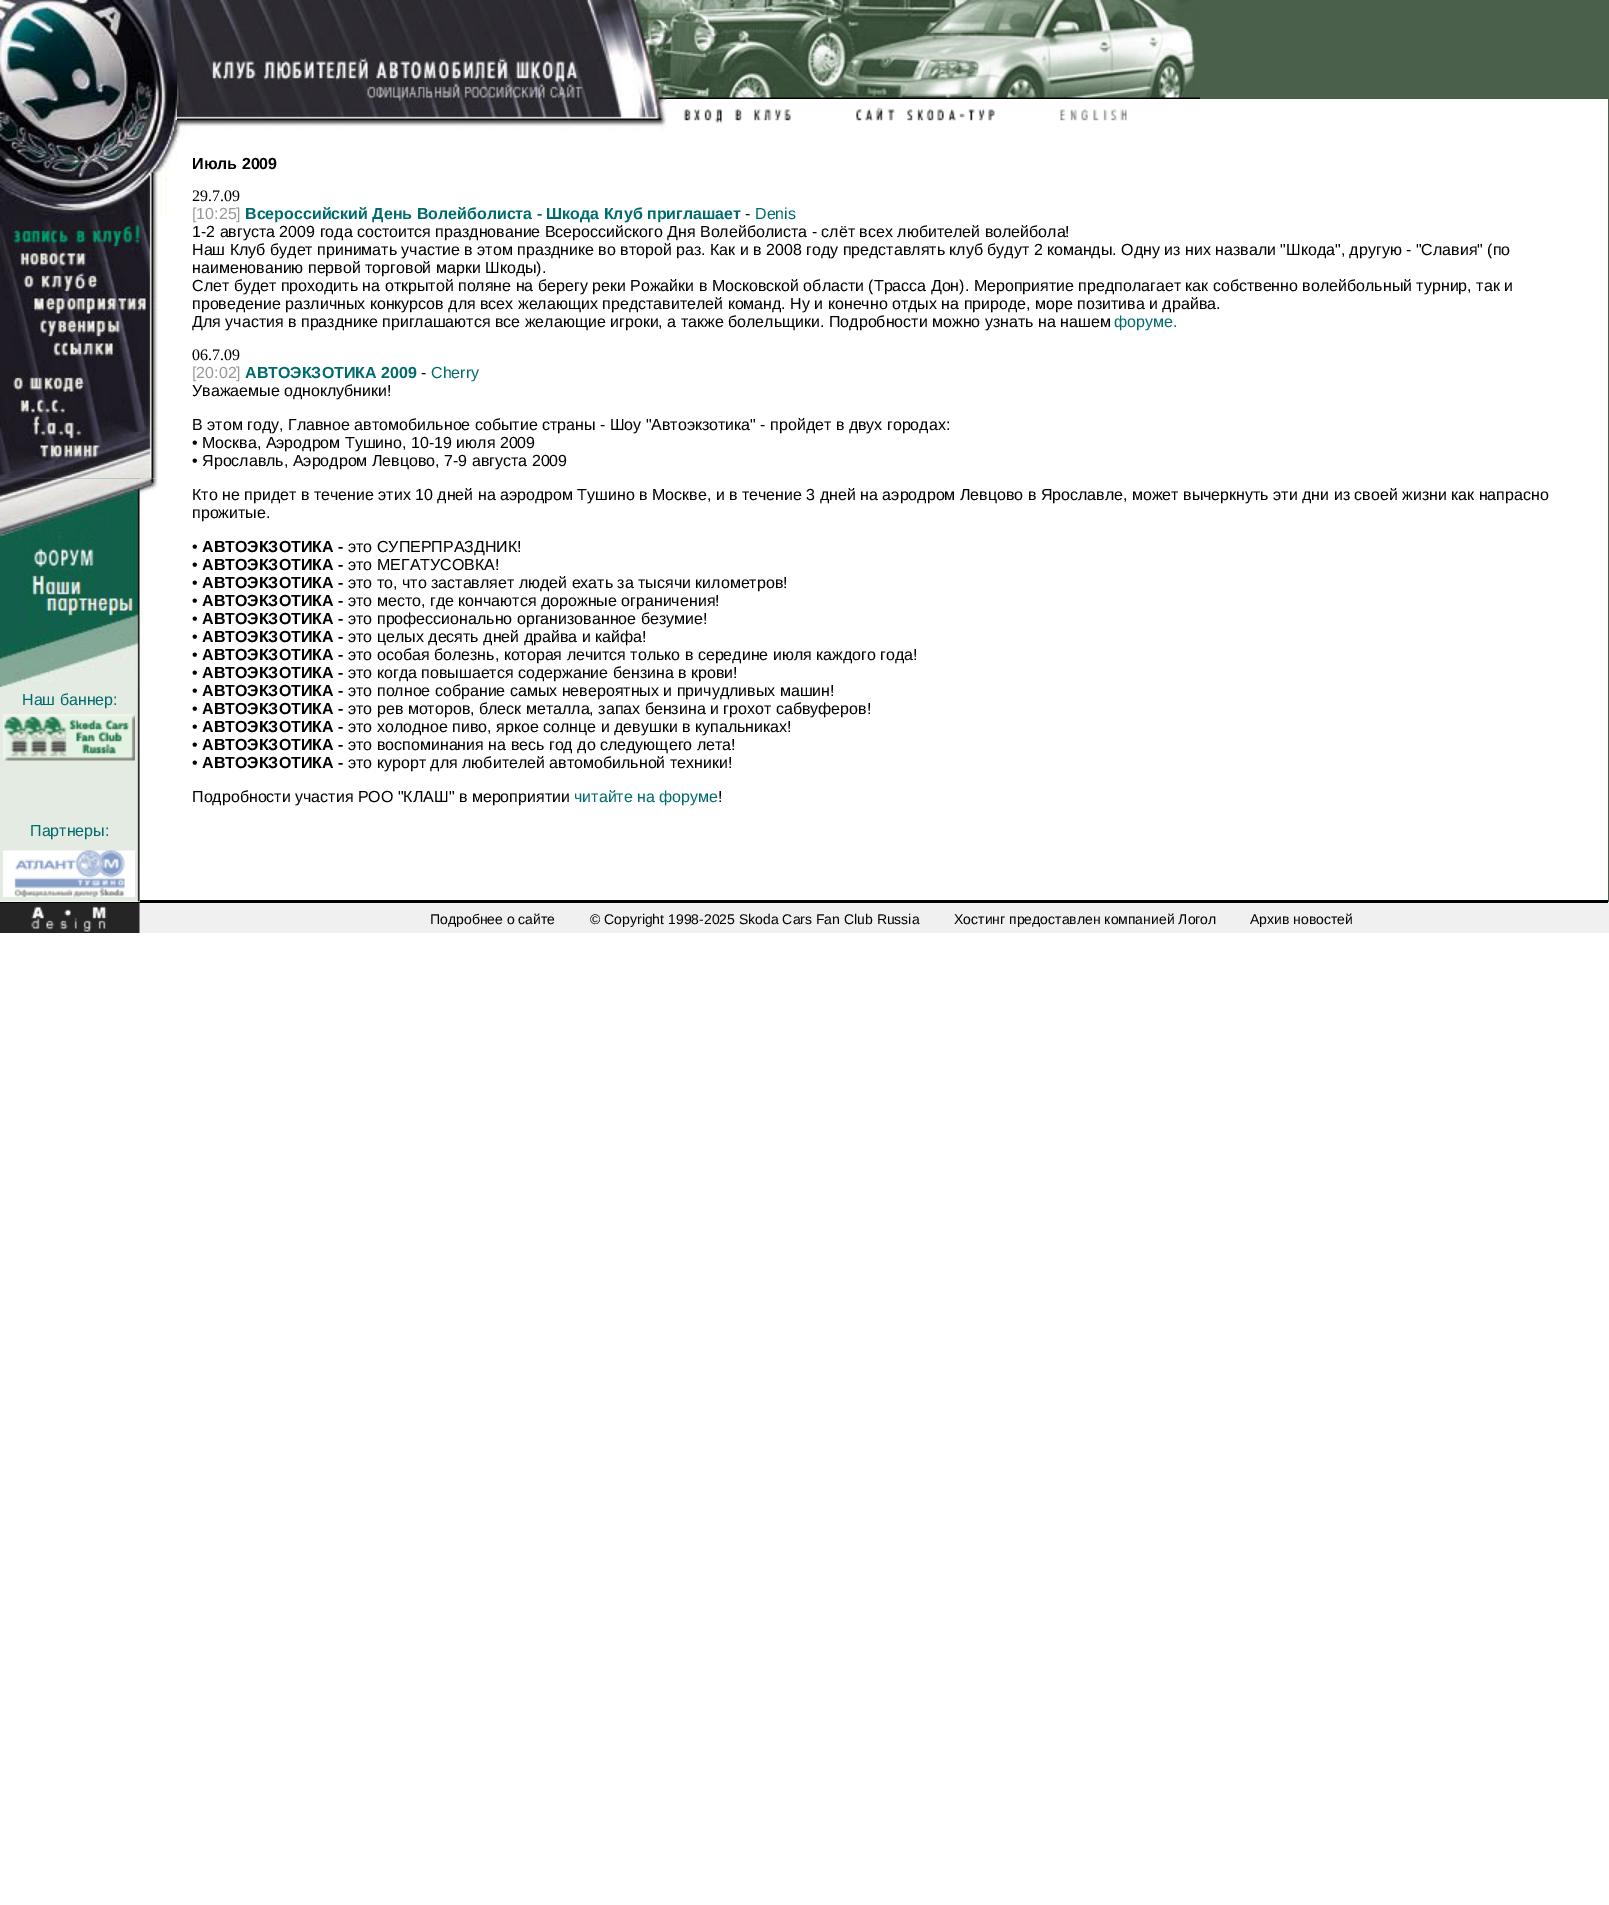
%!PS
<< /PageSize [1609 1905] >> setpagedevice
/rgb { dup -16 bitshift 255 div exch dup -8 bitshift 255 and 255 div exch 255 and 255 div setrgbcolor } def
/font { [ exch dup neg 0 0 3 -1 roll 0 0 ] selectfont } def
/text { moveto show } def
/picture { 5 dict begin { /h /w /y /x /name } { exch def } forall
  gsave x y translate w h scale
  w h 8 [w 0 0 h 0 0] name (r) file false 3 colorimage grestore end } def
0 1905 translate 1 -1 scale
4 setmiterlimit
/s1 { /LiberationSans-Regular 16 font 16#006B6E rgb } def
/s2 { /LiberationSans-Bold 16 font 16#000000 rgb } def
/s3 { /LiberationSerif-Regular 16 font 16#000000 rgb } def
/s4 { /LiberationSans-Regular 16 font 16#999999 rgb } def
/s5 { /LiberationSans-Bold 16 font 16#006B6E rgb } def
/s6 { /LiberationSans-Regular 16 font 16#000000 rgb } def
/s7 { /LiberationSans-Regular 14 font 16#000000 rgb } def
16#FFFFFF rgb
0 0 1609 1905 rectfill
(pic1.raw) 0 478 140 422 picture
(pic2.raw) 0 0 177 216 picture
(pic3.raw) 0 478 151 1 picture
(pic5.raw) 0 478 151 1 picture
(pic4.raw) 0 216 158 263 picture
(pic6.raw) 0 478 158 209 picture
s1
(Наш баннер:) 22 705 text
(pic7.raw) 3 714 132 47 picture
(Партнеры:) 30 836 text
(pic8.raw) 3 850 132 47 picture
(pic9.raw) 177 0 489 138 picture
(pic10.raw) 666 0 534 99 picture
16#4A604B rgb
1200 0 408 99 rectfill
(pic11.raw) 683 107 444 17 picture
s2
(Июль 2009) 192 169 text
s3
(29.7.09) 192 201 text
s4
([10:25]) 192 219 text
s5
(Всероссийский День Волейболиста - Шкода Клуб приглашает) 245 219 text
s6
(-) 745 219 text
s1
(Denis) 755 219 text
s6
(1-2 августа 2009 года состоится празднование Всероссийского Дня Волейболиста - слёт всех любителей волейбола!) 192 237 text
(Наш Клуб будет принимать участие в этом празднике во второй раз. Как и в 2008 году представлять клуб будут 2 команды. Одну из них назвали "Шкода", другую - "Славия" \(по) 192 255 text
(наименованию первой торговой марки Шкоды\).) 192 273 text
(Слет будет проходить на открытой поляне на берегу реки Рожайки в Московской области \(Трасса Дон\). Мероприятие предполагает как собственно волейбольный турнир, так и) 192 291 text
(проведение различных конкурсов для всех желающих представителей команд. Ну и конечно отдых на природе, море позитива и драйва.) 192 309 text
(Для участия в празднике приглашаются все желающие игроки, а также болельщики. Подробности можно узнать на нашем) 192 327 text
s1
(форуме.) 1114 327 text
s3
(06.7.09) 192 360 text
s4
([20:02]) 192 378 text
s5
(АВТОЭКЗОТИКА 2009) 245 378 text
s6
(-) 421 378 text
s1
(Cherry) 431 378 text
s6
(Уважаемые одноклубники!) 192 396 text
(В этом году, Главное автомобильное событие страны - Шоу "Автоэкзотика" - пройдет в двух городах:) 192 430 text
(• Москва, Аэродром Тушино, 10-19 июля 2009) 192 448 text
(• Ярославль, Аэродром Левцово, 7-9 августа 2009) 192 466 text
(Кто не придет в течение этих 10 дней на аэродром Тушино в Москве, и в течение 3 дней на аэродром Левцово в Ярославле, может вычеркнуть эти дни из своей жизни как напрасно) 192 500 text
(прожитые.) 192 518 text
(•) 192 552 text
s2
(АВТОЭКЗОТИКА -) 202 552 text
s6
(это СУПЕРПРАЗДНИК!) 348 552 text
(•) 192 570 text
s2
(АВТОЭКЗОТИКА -) 202 570 text
s6
(это МЕГАТУСОВКА!) 348 570 text
(•) 192 588 text
s2
(АВТОЭКЗОТИКА -) 202 588 text
s6
(это то, что заставляет людей ехать за тысячи километров!) 348 588 text
(•) 192 606 text
s2
(АВТОЭКЗОТИКА -) 202 606 text
s6
(это место, где кончаются дорожные ограничения!) 348 606 text
(•) 192 624 text
s2
(АВТОЭКЗОТИКА -) 202 624 text
s6
(это профессионально организованное безумие!) 348 624 text
(•) 192 642 text
s2
(АВТОЭКЗОТИКА -) 202 642 text
s6
(это целых десять дней драйва и кайфа!) 348 642 text
(•) 192 660 text
s2
(АВТОЭКЗОТИКА -) 202 660 text
s6
(это особая болезнь, которая лечится только в середине июля каждого года!) 348 660 text
(•) 192 678 text
s2
(АВТОЭКЗОТИКА -) 202 678 text
s6
(это когда повышается содержание бензина в крови!) 348 678 text
(•) 192 696 text
s2
(АВТОЭКЗОТИКА -) 202 696 text
s6
(это полное собрание самых невероятных и причудливых машин!) 348 696 text
(•) 192 714 text
s2
(АВТОЭКЗОТИКА -) 202 714 text
s6
(это рев моторов, блеск металла, запах бензина и грохот сабвуферов!) 348 714 text
(•) 192 732 text
s2
(АВТОЭКЗОТИКА -) 202 732 text
s6
(это холодное пиво, яркое солнце и девушки в купальниках!) 348 732 text
(•) 192 750 text
s2
(АВТОЭКЗОТИКА -) 202 750 text
s6
(это воспоминания на весь год до следующего лета!) 348 750 text
(•) 192 768 text
s2
(АВТОЭКЗОТИКА -) 202 768 text
s6
(это курорт для любителей автомобильной техники!) 348 768 text
(Подробности участия РОО "КЛАШ" в мероприятии) 192 802 text
s1
(читайте на форуме) 574 802 text
s6
(!) 718 802 text
16#4A604B rgb
1608 0 1 902 rectfill
(pic12.raw) 0 900 140 2 picture
16#000000 rgb
140 900 1468 2 rectfill
0 902 1608 1 rectfill
16#F0F0F0 rgb
139 903 1470 30 rectfill
(pic13.raw) 0 903 140 30 picture
s7
(Подробнее о сайте) 430 924 text
(© Copyright 1998-2025 Skoda Cars Fan Club Russia) 590 924 text
(Хостинг предоставлен компанией Логол) 954 924 text
(Архив новостей) 1250 924 text
showpage
